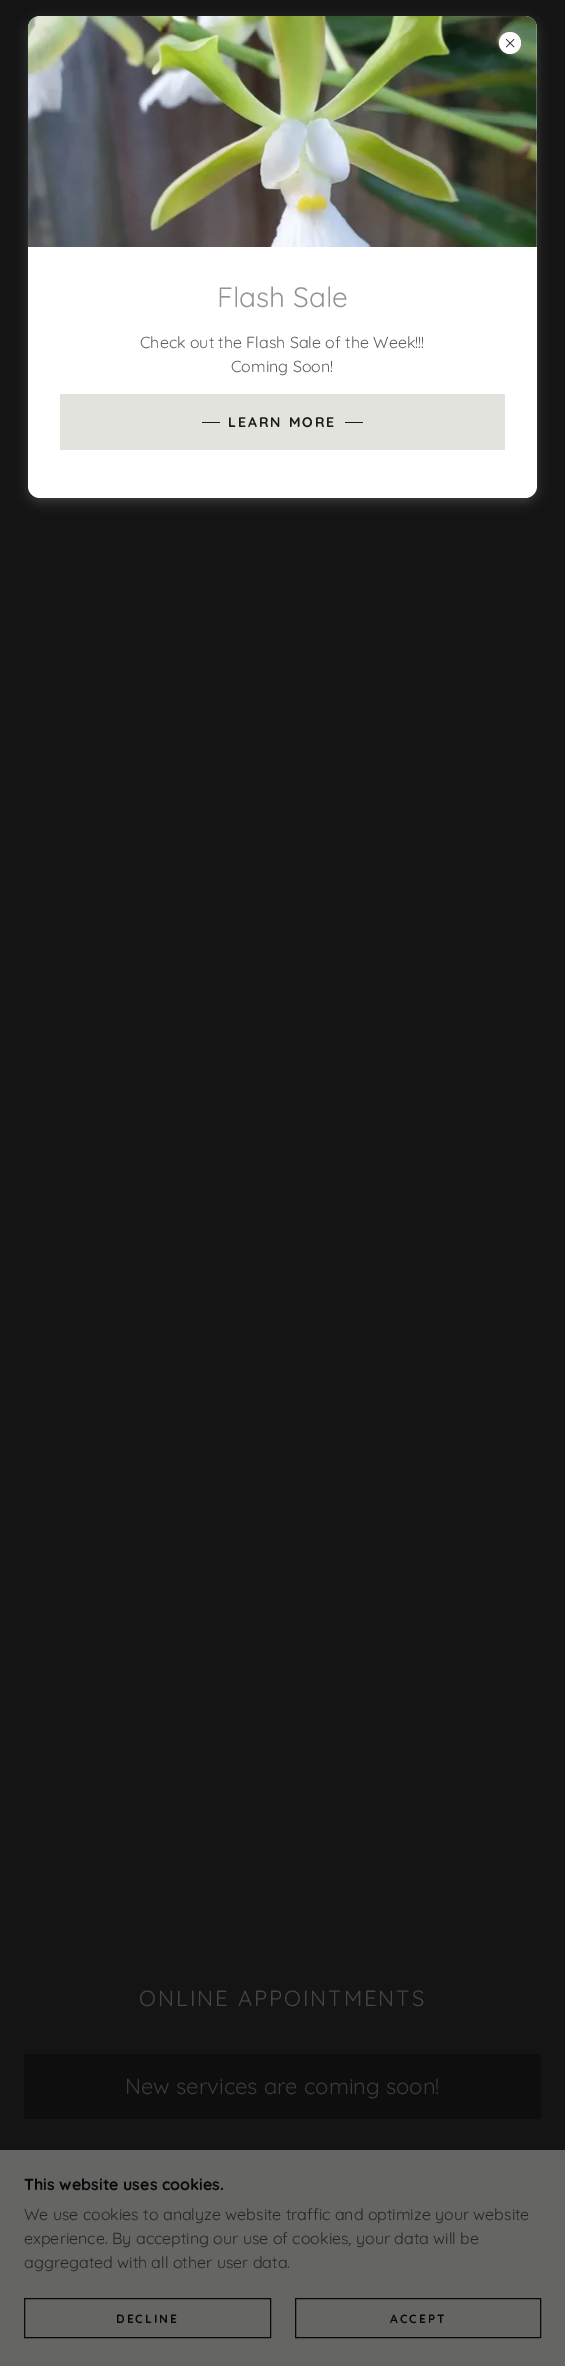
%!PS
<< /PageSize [565 2366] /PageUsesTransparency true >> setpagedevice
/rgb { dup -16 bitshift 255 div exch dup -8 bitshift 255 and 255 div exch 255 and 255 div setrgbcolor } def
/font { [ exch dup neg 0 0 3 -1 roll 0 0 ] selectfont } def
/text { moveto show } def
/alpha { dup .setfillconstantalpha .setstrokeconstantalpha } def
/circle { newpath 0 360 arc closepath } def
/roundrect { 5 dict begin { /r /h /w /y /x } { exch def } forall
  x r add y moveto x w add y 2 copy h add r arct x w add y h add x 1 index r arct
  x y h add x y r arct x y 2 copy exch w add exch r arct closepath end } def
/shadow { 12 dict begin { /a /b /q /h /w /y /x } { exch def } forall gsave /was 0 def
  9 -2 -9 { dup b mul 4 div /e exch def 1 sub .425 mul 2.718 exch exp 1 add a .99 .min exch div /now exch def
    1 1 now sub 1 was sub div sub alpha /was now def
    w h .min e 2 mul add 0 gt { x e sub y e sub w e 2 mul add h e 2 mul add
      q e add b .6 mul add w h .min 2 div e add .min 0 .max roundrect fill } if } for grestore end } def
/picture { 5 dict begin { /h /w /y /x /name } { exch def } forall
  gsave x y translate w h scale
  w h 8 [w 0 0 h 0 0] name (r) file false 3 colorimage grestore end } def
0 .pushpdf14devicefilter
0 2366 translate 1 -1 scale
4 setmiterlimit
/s1 { /Quicksand-Regular 28 font 16#949492 rgb } def
/s2 { /Quicksand-Regular 16 font 16#5E5E5E rgb } def
/s3 { /Quicksand-Regular 22 font 16#3A3A3A rgb } def
/s4 { /Quicksand-Bold 16 font 16#0A0A0A rgb } def
/s5 { /Quicksand-Regular 16 font 16#252524 rgb } def
16#141414 rgb
0 0 565 2366 rectfill
16#757575 rgb
28 20 509 482 12 6 0.4 shadow
16#FFFFFF rgb
28 16 509 482 12 roundrect fill
(pic2.raw) 28 16 509 231 picture
510 43 11 circle fill
(pic1.raw) 506 39 9 9 picture
s1
(Flash Sale) 217 307 text
s2
(Check out the Flash Sale of the Week!!!) 140 348 text
(Coming Soon!) 231 372 text
16#E3E3DE rgb
60 394 445 56 rectfill
16#1B1B1B rgb
202 422 18 1 rectfill
/Quicksand-Bold 14 font
228 427 moveto 2 0 (LEARN MORE) ashow
345 422 18 1 rectfill
/Quicksand-Regular 22 font
16#444444 rgb
139 2006 moveto 2 0 (ONLINE APPOINTMENTS) ashow
16#0E0E0E rgb
24 2054 517 65 rectfill
s3
(New services are coming soon!) 125 2094 text
16#656564 rgb
0 2150 565 216 rectfill
s4
(This website uses cookies.) 24 2190 text
s5
(We use cookies to analyze website traffic and optimize your website) 24 2220 text
(experience. By accepting our use of cookies, your data will be) 24 2244 text
(aggregated with all other user data.) 24 2268 text
16#090909 rgb
24.5 2298.5 246 39 rectstroke
/Quicksand-Bold 12 font
16#0A0A0A rgb
116 2323 moveto 2 0 (DECLINE) ashow
16#090909 rgb
295.5 2298.5 245 39 rectstroke
16#0A0A0A rgb
390 2323 moveto 2 0 (ACCEPT) ashow
.poppdf14devicefilter showpage
